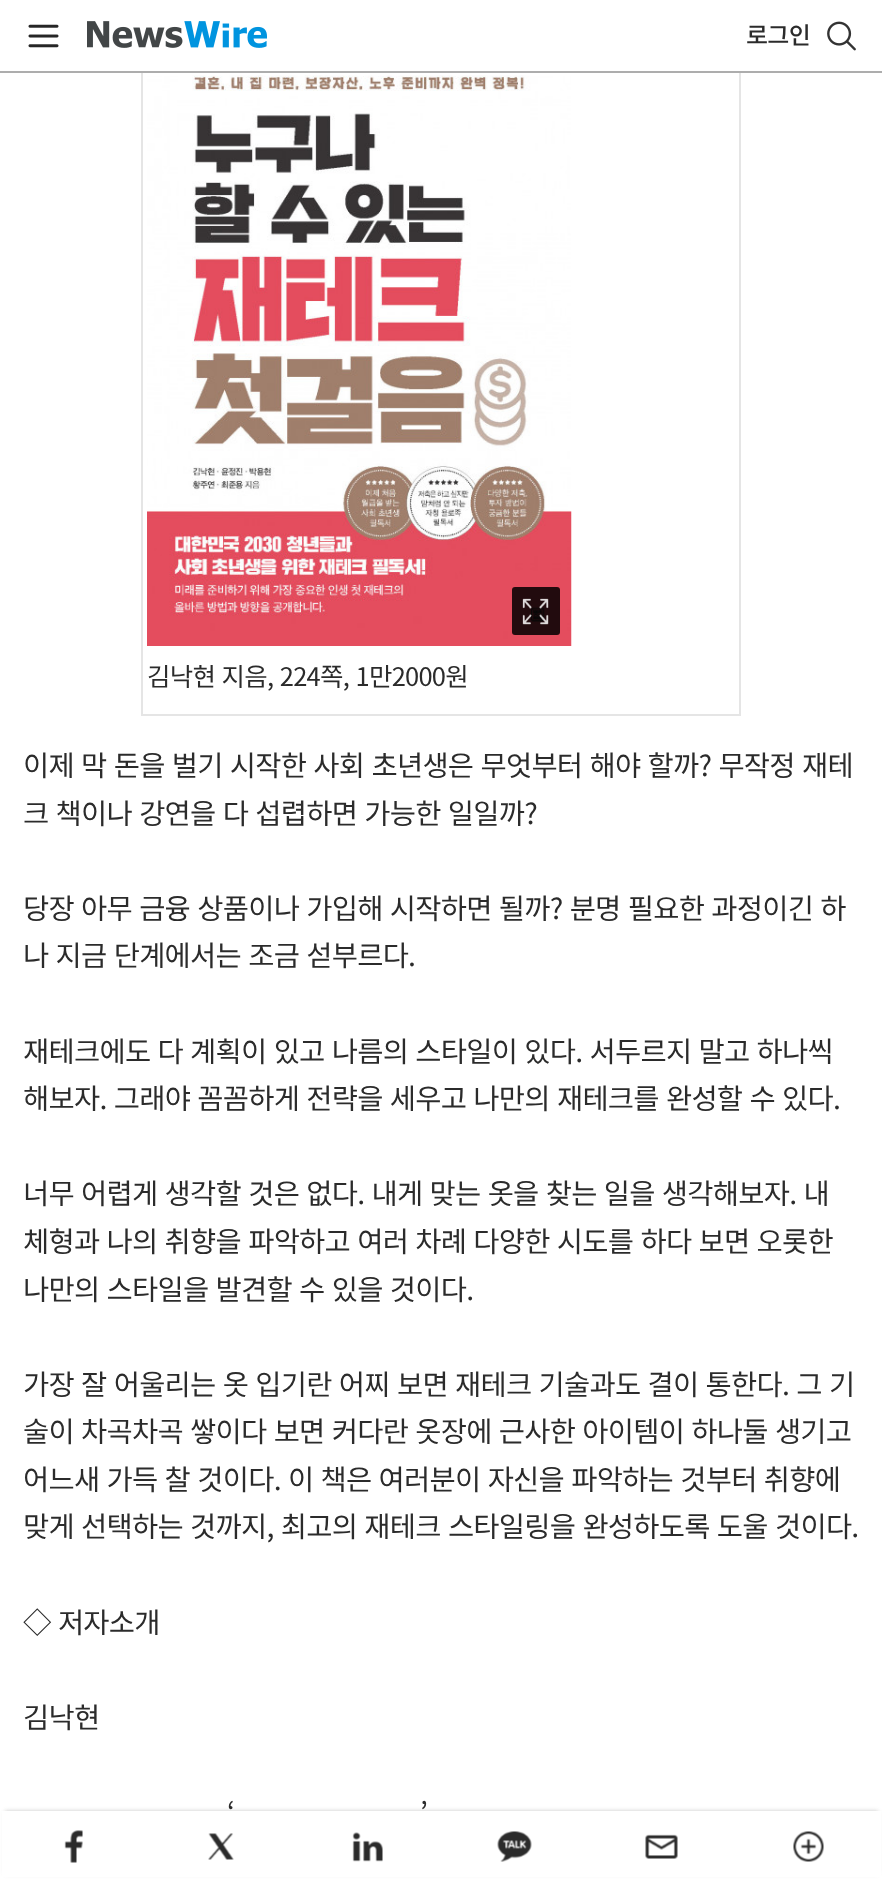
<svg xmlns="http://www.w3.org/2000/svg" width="882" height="1882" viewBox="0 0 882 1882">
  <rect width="100%" height="100%" fill="#fff"/>
  <path d="M142 42h598v673H142z" fill="none" stroke="#e5e5e5" stroke-width="2"/>
  <path d="M141 41h600v30H141z" fill="#fff"/>
  <path d="M0 71h882v2H0z" fill="#adadad"/>
  <image x="28" y="24" width="31" height="24" href="img/1.png"/>
  <image x="87" y="21" width="180" height="27" href="img/2.png"/>
  <image x="827" y="21" width="29" height="30" href="img/3.png"/>
  <image x="147" y="75" width="425" height="571" href="img/4.png"/>
  <rect x="512" y="587" width="48" height="48" rx="3" fill="#000000d9"/>
  <image x="522" y="598" width="27" height="27" href="img/5.png"/>
  <path d="M5 1811h873v63H5z" fill="#4444444d" filter="blur(2px)"/>
  <path d="M2 1811h879v66H2z" fill="#fff"/>
  <image x="64" y="1830" width="19" height="33" href="img/6.png"/>
  <image x="208" y="1833" width="26" height="27" href="img/7.png"/>
  <image x="352" y="1832" width="31" height="30" href="img/8.png"/>
  <image x="497" y="1831" width="35" height="31" href="img/9.png"/>
  <image x="645" y="1834" width="33" height="25" href="img/10.png"/>
  <image x="793" y="1831" width="31" height="31" href="img/11.png"/>
  <text x="746" y="44" font-family="Noto Sans KR" font-size="24" font-weight="500" letter-spacing="-0.75" fill="#2b2b2b">로그인</text>
  <text x="147" y="686" word-spacing="1.5" font-family="Noto Sans KR" font-size="25.5" letter-spacing="-0.75" fill="#2b2b2b">김낙현 지음, 224쪽, 1만2000원</text>
  <g font-family="Noto Sans KR" font-size="28.5" letter-spacing="-0.75" fill="#2b2b2b">
    <text x="23" y="776" word-spacing="1.5">이제 막 돈을 벌기 시작한 사회 초년생은 무엇부터 해야 할까? 무작정 재테</text>
    <text x="23" y="824" word-spacing="1.5">크 책이나 강연을 다 섭렵하면 가능한 일일까?</text>
    <text x="23" y="919" word-spacing="1.5">당장 아무 금융 상품이나 가입해 시작하면 될까? 분명 필요한 과정이긴 하</text>
    <text x="23" y="966" word-spacing="1.5">나 지금 단계에서는 조금 섣부르다.</text>
    <text x="23" y="1062" word-spacing="1.5">재테크에도 다 계획이 있고 나름의 스타일이 있다. 서두르지 말고 하나씩</text>
    <text x="23" y="1109" word-spacing="1.5">해보자. 그래야 꼼꼼하게 전략을 세우고 나만의 재테크를 완성할 수 있다.</text>
    <text x="23" y="1204" word-spacing="1.5">너무 어렵게 생각할 것은 없다. 내게 맞는 옷을 찾는 일을 생각해보자. 내</text>
    <text x="23" y="1252" word-spacing="1.5">체형과 나의 취향을 파악하고 여러 차례 다양한 시도를 하다 보면 오롯한</text>
    <text x="23" y="1300" word-spacing="1.5">나만의 스타일을 발견할 수 있을 것이다.</text>
    <text x="23" y="1395" word-spacing="1.5">가장 잘 어울리는 옷 입기란 어찌 보면 재테크 기술과도 결이 통한다. 그 기</text>
    <text x="23" y="1442" word-spacing="1.5">술이 차곡차곡 쌓이다 보면 커다란 옷장에 근사한 아이템이 하나둘 생기고</text>
    <text x="23" y="1490" word-spacing="1.5">어느새 가득 찰 것이다. 이 책은 여러분이 자신을 파악하는 것부터 취향에</text>
    <text x="23" y="1537" word-spacing="1.5">맞게 선택하는 것까지, 최고의 재테크 스타일링을 완성하도록 도울 것이다.</text>
    <text x="23" y="1633" word-spacing="1.5">◇ 저자소개</text>
    <text x="23" y="1728">김낙현</text>
    <text x="227" y="1823" word-spacing="1.5">‘</text>
    <text x="420" y="1823" word-spacing="1.5">’</text>
  </g>
</svg>
